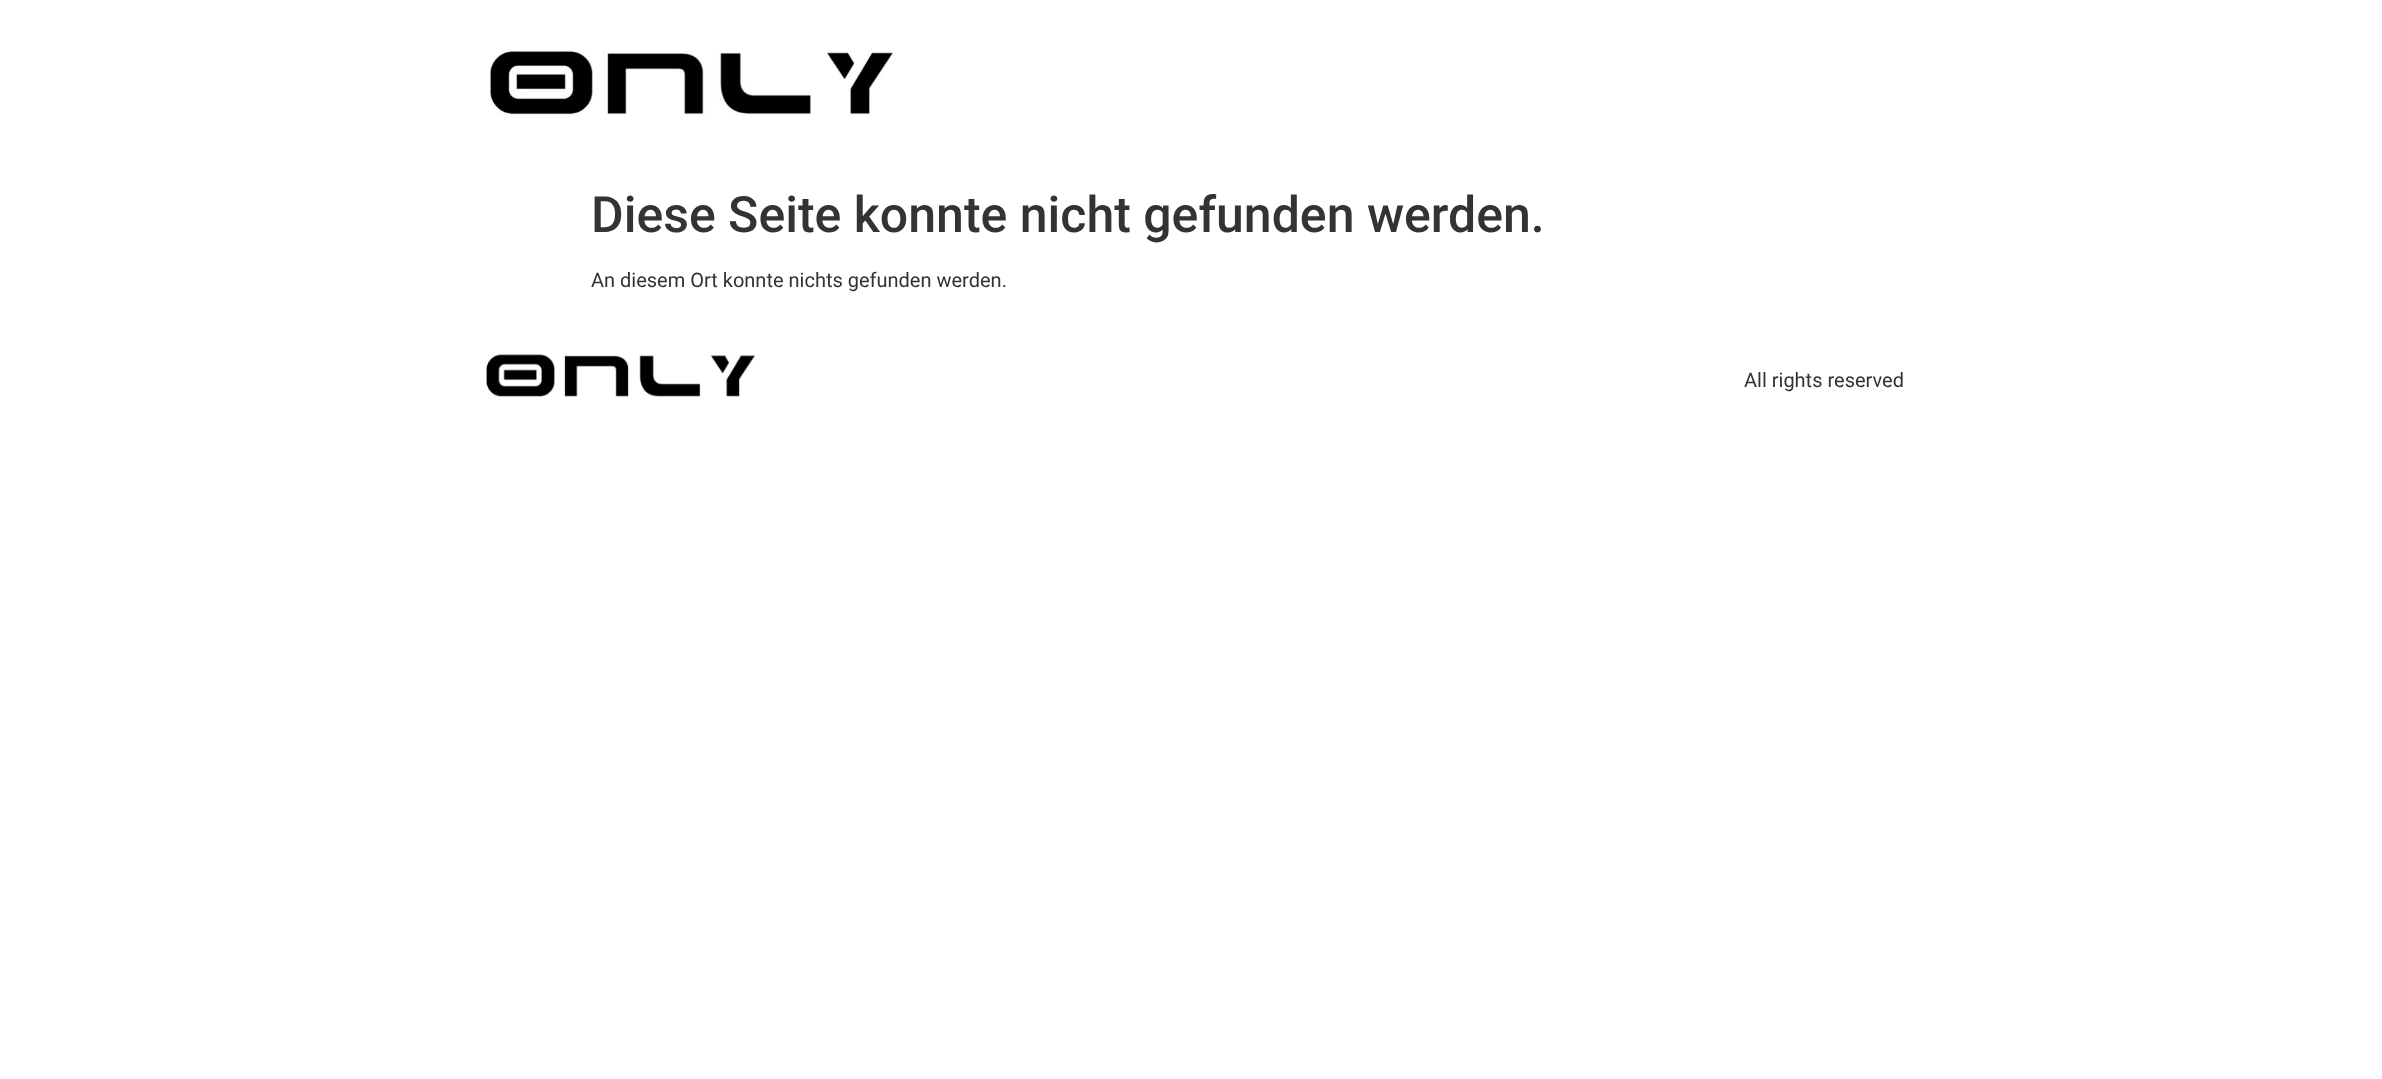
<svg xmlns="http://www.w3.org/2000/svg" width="2382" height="1079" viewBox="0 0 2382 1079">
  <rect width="100%" height="100%" fill="#fff"/>
  <image x="489" y="50" width="405" height="65" href="img/1.png"/>
  <image x="486" y="354" width="270" height="43" href="img/2.png"/>
  <text x="591" y="232" font-family="Roboto" font-size="50" font-weight="500" fill="#333">Diese Seite konnte nicht gefunden werden.</text>
  <g font-family="Roboto" font-size="20" fill="#333">
    <text x="591" y="287">An diesem Ort konnte nichts gefunden werden.</text>
    <text x="1744" y="387">All rights reserved</text>
  </g>
</svg>
